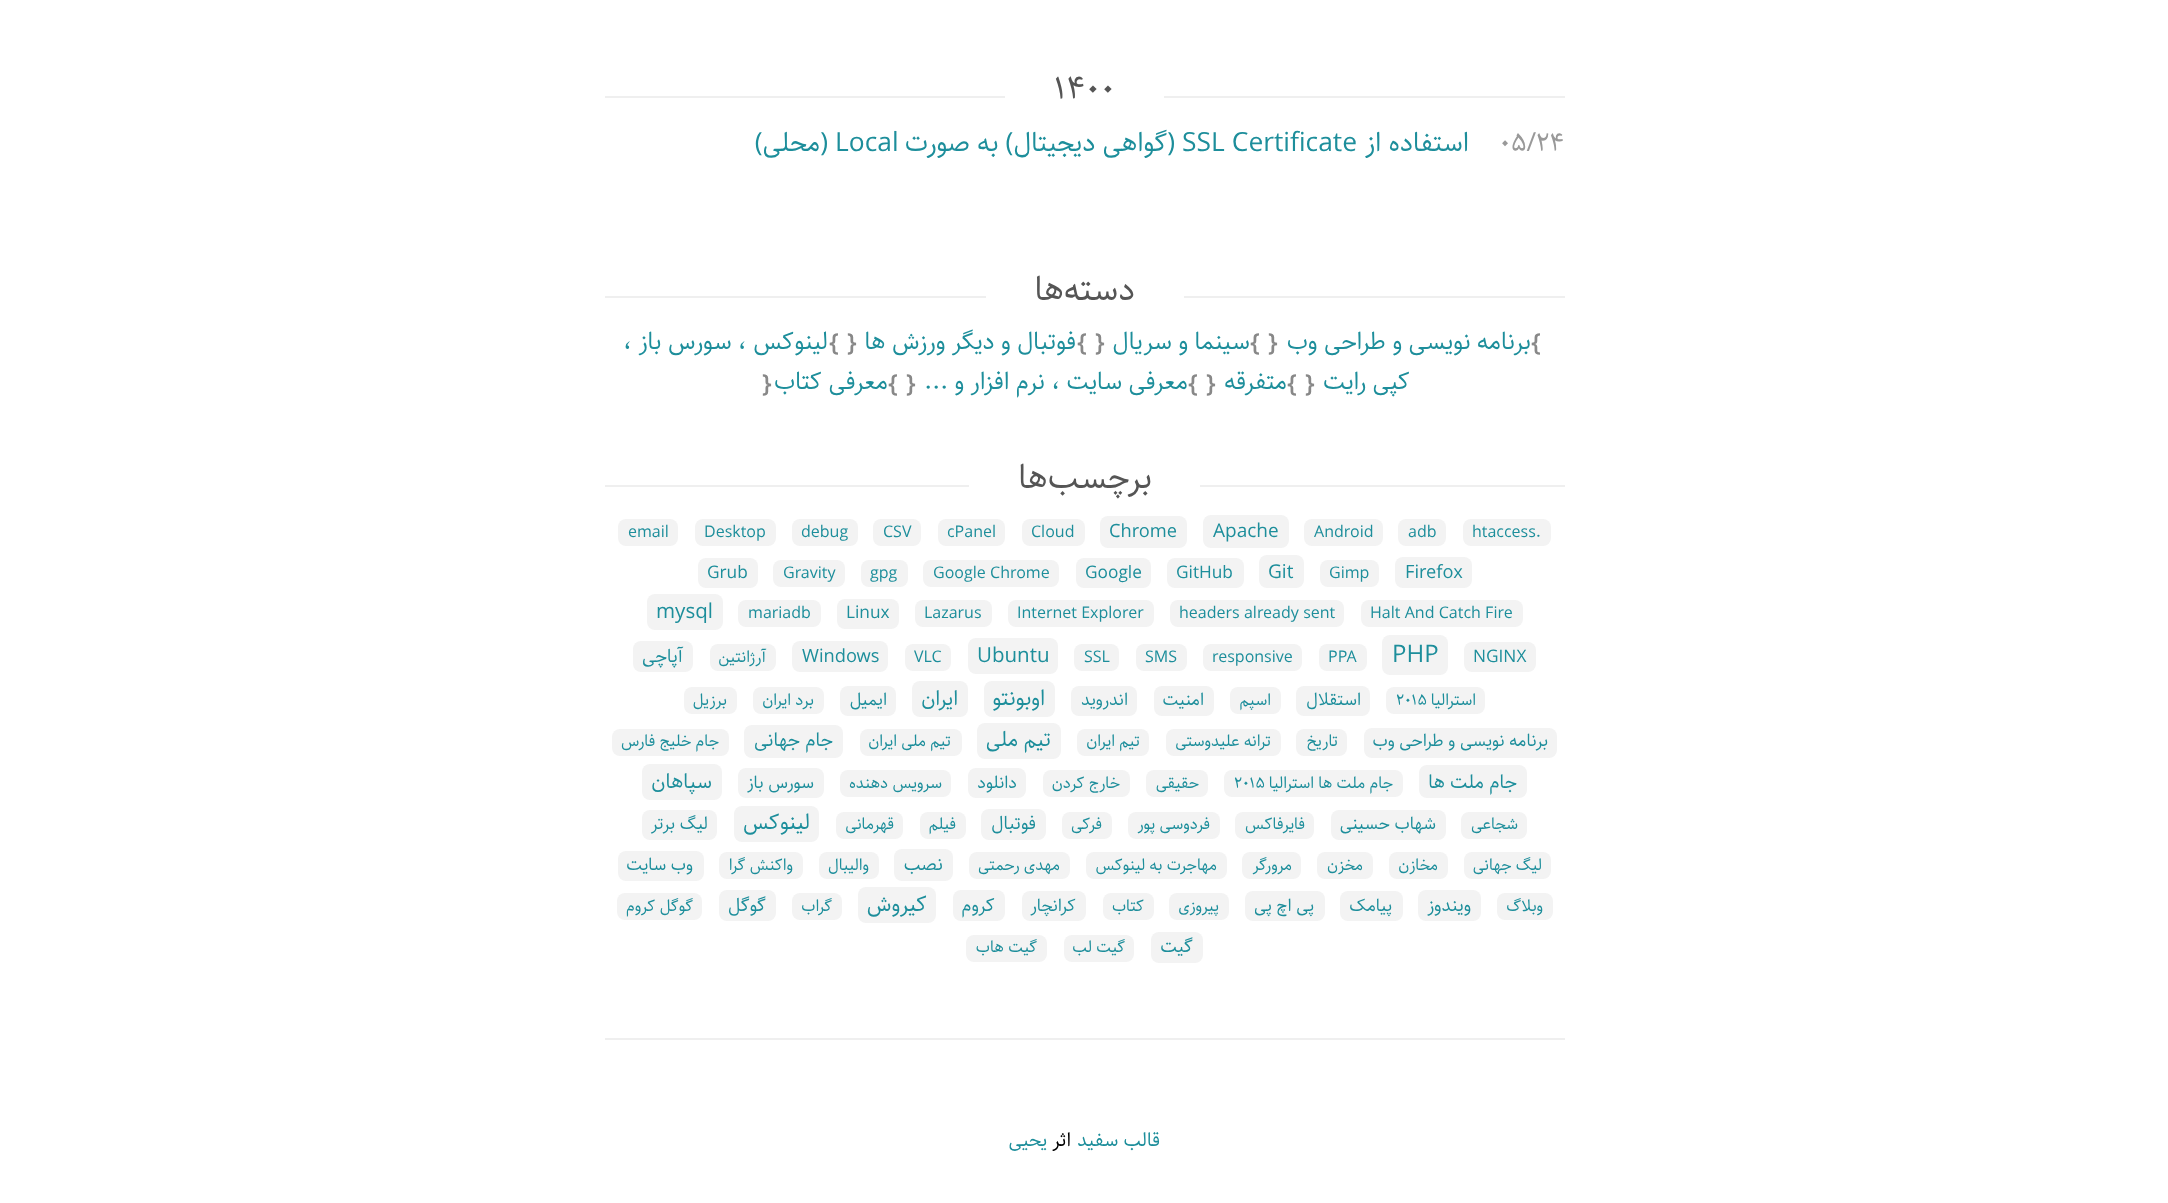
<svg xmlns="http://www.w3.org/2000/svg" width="2168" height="1203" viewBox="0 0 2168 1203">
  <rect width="100%" height="100%" fill="#fff"/>
  <path d="M605 96h960v2H605z" fill="#efefef"/>
  <path d="M1005 96h159v2H1005z" fill="#fff"/>
  <path d="M605 296h960v2H605z" fill="#efefef"/>
  <path d="M986 296h198v2H986z" fill="#fff"/>
  <path d="M605 485h960v2H605z" fill="#efefef"/>
  <path d="M969 485h231v2H969z" fill="#fff"/>
  <rect x="1463" y="519" width="88" height="27" rx="8" fill="#f3f3f3"/>
  <rect x="1398" y="519" width="48" height="27" rx="8" fill="#f3f3f3"/>
  <rect x="1304" y="519" width="79" height="27" rx="8" fill="#f3f3f3"/>
  <rect x="1203" y="515" width="86" height="33" rx="8" fill="#f3f3f3"/>
  <rect x="1100" y="516" width="87" height="32" rx="8" fill="#f3f3f3"/>
  <rect x="1022" y="519" width="63" height="27" rx="8" fill="#f3f3f3"/>
  <rect x="938" y="519" width="67" height="27" rx="8" fill="#f3f3f3"/>
  <rect x="873" y="519" width="48" height="27" rx="8" fill="#f3f3f3"/>
  <rect x="792" y="519" width="66" height="27" rx="8" fill="#f3f3f3"/>
  <rect x="695" y="519" width="81" height="27" rx="8" fill="#f3f3f3"/>
  <rect x="618" y="519" width="60" height="27" rx="8" fill="#f3f3f3"/>
  <rect x="1395" y="557" width="77" height="31" rx="8" fill="#f3f3f3"/>
  <rect x="1320" y="560" width="59" height="27" rx="8" fill="#f3f3f3"/>
  <rect x="1259" y="555" width="45" height="33" rx="8" fill="#f3f3f3"/>
  <rect x="1167" y="558" width="77" height="30" rx="8" fill="#f3f3f3"/>
  <rect x="1076" y="558" width="75" height="30" rx="8" fill="#f3f3f3"/>
  <rect x="923" y="560" width="136" height="27" rx="8" fill="#f3f3f3"/>
  <rect x="861" y="560" width="47" height="27" rx="8" fill="#f3f3f3"/>
  <rect x="773" y="560" width="72" height="27" rx="8" fill="#f3f3f3"/>
  <rect x="698" y="558" width="60" height="30" rx="8" fill="#f3f3f3"/>
  <rect x="1361" y="600" width="162" height="27" rx="8" fill="#f3f3f3"/>
  <rect x="1170" y="600" width="174" height="27" rx="8" fill="#f3f3f3"/>
  <rect x="1008" y="600" width="146" height="27" rx="8" fill="#f3f3f3"/>
  <rect x="915" y="600" width="77" height="27" rx="8" fill="#f3f3f3"/>
  <rect x="837" y="599" width="62" height="30" rx="8" fill="#f3f3f3"/>
  <rect x="738" y="600" width="83" height="27" rx="8" fill="#f3f3f3"/>
  <rect x="647" y="594" width="76" height="36" rx="8" fill="#f3f3f3"/>
  <rect x="1464" y="642" width="72" height="30" rx="8" fill="#f3f3f3"/>
  <rect x="1382" y="635" width="66" height="40" rx="8" fill="#f3f3f3"/>
  <rect x="1319" y="644" width="48" height="27" rx="8" fill="#f3f3f3"/>
  <rect x="1203" y="644" width="99" height="27" rx="8" fill="#f3f3f3"/>
  <rect x="1136" y="644" width="51" height="27" rx="8" fill="#f3f3f3"/>
  <rect x="1074" y="644" width="45" height="27" rx="8" fill="#f3f3f3"/>
  <rect x="968" y="638" width="90" height="36" rx="8" fill="#f3f3f3"/>
  <rect x="905" y="644" width="46" height="27" rx="8" fill="#f3f3f3"/>
  <rect x="792" y="641" width="96" height="31" rx="8" fill="#f3f3f3"/>
  <rect x="710" y="644" width="66" height="27" rx="8" fill="#f3f3f3"/>
  <rect x="633" y="641" width="60" height="31" rx="8" fill="#f3f3f3"/>
  <rect x="1386" y="687" width="99" height="27" rx="8" fill="#f3f3f3"/>
  <rect x="1296" y="686" width="74" height="30" rx="8" fill="#f3f3f3"/>
  <rect x="1230" y="687" width="51" height="27" rx="8" fill="#f3f3f3"/>
  <rect x="1154" y="686" width="60" height="30" rx="8" fill="#f3f3f3"/>
  <rect x="1071" y="686" width="66" height="30" rx="8" fill="#f3f3f3"/>
  <rect x="984" y="681" width="71" height="36" rx="8" fill="#f3f3f3"/>
  <rect x="912" y="681" width="56" height="36" rx="8" fill="#f3f3f3"/>
  <rect x="840" y="686" width="56" height="30" rx="8" fill="#f3f3f3"/>
  <rect x="753" y="687" width="71" height="27" rx="8" fill="#f3f3f3"/>
  <rect x="684" y="687" width="53" height="27" rx="8" fill="#f3f3f3"/>
  <rect x="1364" y="728" width="193" height="30" rx="8" fill="#f3f3f3"/>
  <rect x="1296" y="729" width="51" height="27" rx="8" fill="#f3f3f3"/>
  <rect x="1166" y="729" width="115" height="27" rx="8" fill="#f3f3f3"/>
  <rect x="1077" y="729" width="72" height="27" rx="8" fill="#f3f3f3"/>
  <rect x="977" y="723" width="84" height="36" rx="8" fill="#f3f3f3"/>
  <rect x="860" y="729" width="102" height="27" rx="8" fill="#f3f3f3"/>
  <rect x="744" y="725" width="99" height="33" rx="8" fill="#f3f3f3"/>
  <rect x="612" y="729" width="117" height="27" rx="8" fill="#f3f3f3"/>
  <rect x="1419" y="765" width="108" height="33" rx="8" fill="#f3f3f3"/>
  <rect x="1224" y="770" width="179" height="27" rx="8" fill="#f3f3f3"/>
  <rect x="1146" y="770" width="62" height="27" rx="8" fill="#f3f3f3"/>
  <rect x="1043" y="770" width="87" height="27" rx="8" fill="#f3f3f3"/>
  <rect x="968" y="768" width="58" height="30" rx="8" fill="#f3f3f3"/>
  <rect x="840" y="770" width="111" height="27" rx="8" fill="#f3f3f3"/>
  <rect x="738" y="768" width="86" height="30" rx="8" fill="#f3f3f3"/>
  <rect x="642" y="764" width="80" height="36" rx="8" fill="#f3f3f3"/>
  <rect x="1461" y="812" width="66" height="27" rx="8" fill="#f3f3f3"/>
  <rect x="1331" y="810" width="115" height="30" rx="8" fill="#f3f3f3"/>
  <rect x="1235" y="812" width="79" height="27" rx="8" fill="#f3f3f3"/>
  <rect x="1128" y="812" width="92" height="27" rx="8" fill="#f3f3f3"/>
  <rect x="1062" y="812" width="50" height="27" rx="8" fill="#f3f3f3"/>
  <rect x="981" y="809" width="65" height="31" rx="8" fill="#f3f3f3"/>
  <rect x="920" y="812" width="46" height="27" rx="8" fill="#f3f3f3"/>
  <rect x="836" y="812" width="67" height="27" rx="8" fill="#f3f3f3"/>
  <rect x="734" y="806" width="85" height="36" rx="8" fill="#f3f3f3"/>
  <rect x="642" y="810" width="75" height="30" rx="8" fill="#f3f3f3"/>
  <rect x="1464" y="852" width="87" height="27" rx="8" fill="#f3f3f3"/>
  <rect x="1389" y="852" width="59" height="27" rx="8" fill="#f3f3f3"/>
  <rect x="1317" y="852" width="56" height="27" rx="8" fill="#f3f3f3"/>
  <rect x="1242" y="852" width="59" height="27" rx="8" fill="#f3f3f3"/>
  <rect x="1086" y="852" width="141" height="27" rx="8" fill="#f3f3f3"/>
  <rect x="969" y="852" width="101" height="27" rx="8" fill="#f3f3f3"/>
  <rect x="894" y="849" width="59" height="32" rx="8" fill="#f3f3f3"/>
  <rect x="819" y="852" width="60" height="27" rx="8" fill="#f3f3f3"/>
  <rect x="719" y="852" width="84" height="27" rx="8" fill="#f3f3f3"/>
  <rect x="618" y="851" width="86" height="30" rx="8" fill="#f3f3f3"/>
  <rect x="1497" y="893" width="56" height="27" rx="8" fill="#f3f3f3"/>
  <rect x="1418" y="890" width="63" height="31" rx="8" fill="#f3f3f3"/>
  <rect x="1340" y="891" width="63" height="30" rx="8" fill="#f3f3f3"/>
  <rect x="1245" y="891" width="80" height="30" rx="8" fill="#f3f3f3"/>
  <rect x="1169" y="893" width="60" height="27" rx="8" fill="#f3f3f3"/>
  <rect x="1103" y="893" width="51" height="27" rx="8" fill="#f3f3f3"/>
  <rect x="1022" y="891" width="64" height="30" rx="8" fill="#f3f3f3"/>
  <rect x="953" y="890" width="52" height="31" rx="8" fill="#f3f3f3"/>
  <rect x="858" y="887" width="78" height="36" rx="8" fill="#f3f3f3"/>
  <rect x="792" y="893" width="50" height="27" rx="8" fill="#f3f3f3"/>
  <rect x="719" y="890" width="57" height="31" rx="8" fill="#f3f3f3"/>
  <rect x="617" y="893" width="85" height="27" rx="8" fill="#f3f3f3"/>
  <rect x="1151" y="932" width="52" height="31" rx="8" fill="#f3f3f3"/>
  <rect x="1064" y="935" width="70" height="27" rx="8" fill="#f3f3f3"/>
  <rect x="966" y="935" width="81" height="27" rx="8" fill="#f3f3f3"/>
  <path d="M605 1038h960v2H605z" fill="#efefef"/>
  <text x="1054" y="99" font-family="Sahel" font-size="33.5" fill="#555">۱۴۰۰</text>
  <text x="1499" y="151" font-family="Sahel" font-size="26.4" fill="#999">۰۵/۲۴</text>
  <text x="1469" y="151" font-family="Sahel" font-size="26.4" direction="rtl" fill="#1d8e9b">استفاده از</text>
  <text x="1182" y="151" font-family="Sahel" font-size="26.4" fill="#1d8e9b">SSL Certificate</text>
  <text x="1175" y="151" font-family="Sahel" font-size="26.4" direction="rtl" fill="#1d8e9b">(گواهی دیجیتال) به صورت</text>
  <text x="835" y="151" font-family="Sahel" font-size="26.4" fill="#1d8e9b">Local</text>
  <text x="828" y="151" font-family="Sahel" font-size="26.4" direction="rtl" fill="#1d8e9b">(محلی)</text>
  <text x="1135" y="300" font-family="Sahel" font-size="33.5" direction="rtl" fill="#555">دسته‌ها</text>
  <text x="1077" y="351" font-family="Sahel" font-size="24" font-weight="bold" fill="#888">{</text>
  <text x="1076" y="349" font-family="Sahel" font-size="24" direction="rtl" fill="#1d8e9b">فوتبال و دیگر ورزش ها</text>
  <g font-family="Sahel" font-size="24" font-weight="bold" fill="#888">
    <text x="847" y="351">}</text>
    <text x="829" y="351">{</text>
  </g>
  <g font-family="Sahel" font-size="24" direction="rtl" fill="#1d8e9b">
    <text x="828" y="349">لینوکس ،‌ سورس باز ،‌</text>
    <text x="1410" y="389">کپی رایت</text>
  </g>
  <g font-family="Sahel" font-size="24" font-weight="bold" fill="#888">
    <text x="1305" y="392">}</text>
    <text x="1531" y="351">{</text>
  </g>
  <text x="1531" y="349" font-family="Sahel" font-size="24" direction="rtl" fill="#1d8e9b">برنامه نویسی و طراحی وب</text>
  <g font-family="Sahel" font-size="24" font-weight="bold" fill="#888">
    <text x="1268" y="351">}</text>
    <text x="1250" y="351">{</text>
  </g>
  <text x="1250" y="349" font-family="Sahel" font-size="24" direction="rtl" fill="#1d8e9b">سینما و سریال</text>
  <g font-family="Sahel" font-size="24" font-weight="bold" fill="#888">
    <text x="1095" y="351">}</text>
    <text x="1287" y="392">{</text>
  </g>
  <text x="1287" y="389" font-family="Sahel" font-size="24" direction="rtl" fill="#1d8e9b">متفرقه</text>
  <g font-family="Sahel" font-size="24" font-weight="bold" fill="#888">
    <text x="1206" y="392">}</text>
    <text x="1188" y="392">{</text>
  </g>
  <text x="1188" y="389" font-family="Sahel" font-size="24" direction="rtl" fill="#1d8e9b">معرفی سایت ،‌ نرم افزار و ...</text>
  <g font-family="Sahel" font-size="24" font-weight="bold" fill="#888">
    <text x="906" y="392">}</text>
    <text x="888" y="392">{</text>
  </g>
  <text x="888" y="389" font-family="Sahel" font-size="24" direction="rtl" fill="#1d8e9b">معرفی کتاب</text>
  <text x="762" y="392" font-family="Sahel" font-size="24" font-weight="bold" fill="#888">}</text>
  <text x="1152" y="488" font-family="Sahel" font-size="33.5" direction="rtl" fill="#555">برچسب‌ها</text>
  <g font-family="Sahel" font-size="16" fill="#1d8e9b">
    <text x="1472" y="537">htaccess.</text>
    <text x="1408" y="537">adb</text>
    <text x="1314" y="537">Android</text>
  </g>
  <text x="1213" y="537" font-family="Sahel" font-size="19" fill="#1d8e9b">Apache</text>
  <text x="1109" y="537" font-family="Sahel" font-size="18.25" fill="#1d8e9b">Chrome</text>
  <g font-family="Sahel" font-size="16" fill="#1d8e9b">
    <text x="1031" y="537">Cloud</text>
    <text x="947" y="537">cPanel</text>
    <text x="883" y="537">CSV</text>
    <text x="801" y="537">debug</text>
    <text x="704" y="537">Desktop</text>
    <text x="628" y="537">email</text>
  </g>
  <text x="1405" y="578" font-family="Sahel" font-size="18.25" fill="#1d8e9b">Firefox</text>
  <text x="1329" y="578" font-family="Sahel" font-size="16" fill="#1d8e9b">Gimp</text>
  <text x="1268" y="578" font-family="Sahel" font-size="19" fill="#1d8e9b">Git</text>
  <g font-family="Sahel" font-size="17.25" fill="#1d8e9b">
    <text x="1176" y="578">GitHub</text>
    <text x="1085" y="578">Google</text>
  </g>
  <g font-family="Sahel" font-size="16" fill="#1d8e9b">
    <text x="933" y="578">Google Chrome</text>
    <text x="870" y="578">gpg</text>
    <text x="783" y="578">Gravity</text>
  </g>
  <text x="707" y="578" font-family="Sahel" font-size="17.25" fill="#1d8e9b">Grub</text>
  <g font-family="Sahel" font-size="16" fill="#1d8e9b">
    <text x="1370" y="618">Halt And Catch Fire</text>
    <text x="1179" y="618">headers already sent</text>
    <text x="1017" y="618">Internet Explorer</text>
    <text x="924" y="618">Lazarus</text>
  </g>
  <text x="846" y="618" font-family="Sahel" font-size="17.25" fill="#1d8e9b">Linux</text>
  <text x="748" y="618" font-family="Sahel" font-size="16" fill="#1d8e9b">mariadb</text>
  <text x="656" y="618" font-family="Sahel" font-size="20.5" fill="#1d8e9b">mysql</text>
  <text x="1473" y="662" font-family="Sahel" font-size="17.25" fill="#1d8e9b">NGINX</text>
  <text x="1392" y="662" font-family="Sahel" font-size="24" fill="#1d8e9b">PHP</text>
  <g font-family="Sahel" font-size="16" fill="#1d8e9b">
    <text x="1328" y="662">PPA</text>
    <text x="1212" y="662">responsive</text>
    <text x="1145" y="662">SMS</text>
    <text x="1084" y="662">SSL</text>
  </g>
  <text x="977" y="662" font-family="Sahel" font-size="20.5" fill="#1d8e9b">Ubuntu</text>
  <text x="914" y="662" font-family="Sahel" font-size="16" fill="#1d8e9b">VLC</text>
  <text x="802" y="662" font-family="Sahel" font-size="18.25" fill="#1d8e9b">Windows</text>
  <text x="766" y="662" font-family="Sahel" font-size="16" direction="rtl" fill="#1d8e9b">آرژانتین</text>
  <text x="683" y="662" font-family="Sahel" font-size="18.25" direction="rtl" fill="#1d8e9b">آپاچی</text>
  <text x="1476" y="705" font-family="Sahel" font-size="16" direction="rtl" fill="#1d8e9b">استرالیا</text>
  <text x="1396" y="705" font-family="Sahel" font-size="16" fill="#1d8e9b">۲۰۱۵</text>
  <text x="1361" y="705" font-family="Sahel" font-size="17.25" direction="rtl" fill="#1d8e9b">استقلال</text>
  <text x="1271" y="705" font-family="Sahel" font-size="16" direction="rtl" fill="#1d8e9b">اسپم</text>
  <g font-family="Sahel" font-size="17.25" direction="rtl" fill="#1d8e9b">
    <text x="1204" y="705">امنیت</text>
    <text x="1128" y="705">اندروید</text>
  </g>
  <text x="1045" y="705" font-family="Sahel" font-size="21.5" direction="rtl" fill="#1d8e9b">اوبونتو</text>
  <text x="958" y="705" font-family="Sahel" font-size="20.5" direction="rtl" fill="#1d8e9b">ایران</text>
  <text x="887" y="705" font-family="Sahel" font-size="17.25" direction="rtl" fill="#1d8e9b">ایمیل</text>
  <g font-family="Sahel" font-size="16" direction="rtl" fill="#1d8e9b">
    <text x="814" y="705">برد ایران</text>
    <text x="727" y="705">برزیل</text>
  </g>
  <text x="1548" y="746" font-family="Sahel" font-size="17.25" direction="rtl" fill="#1d8e9b">برنامه نویسی و طراحی وب</text>
  <g font-family="Sahel" font-size="16" direction="rtl" fill="#1d8e9b">
    <text x="1338" y="746">تاریخ</text>
    <text x="1271" y="746">ترانه علیدوستی</text>
    <text x="1140" y="746">تیم ایران</text>
  </g>
  <text x="1051" y="746" font-family="Sahel" font-size="21" direction="rtl" fill="#1d8e9b">تیم ملی</text>
  <text x="951" y="746" font-family="Sahel" font-size="16" direction="rtl" fill="#1d8e9b">تیم ملی ایران</text>
  <text x="833" y="746" font-family="Sahel" font-size="19" direction="rtl" fill="#1d8e9b">جام جهانی</text>
  <text x="719" y="746" font-family="Sahel" font-size="16" direction="rtl" fill="#1d8e9b">جام خلیج فارس</text>
  <text x="1517" y="788" font-family="Sahel" font-size="19" direction="rtl" fill="#1d8e9b">جام ملت ها</text>
  <text x="1393" y="788" font-family="Sahel" font-size="16" direction="rtl" fill="#1d8e9b">جام ملت ها استرالیا</text>
  <text x="1234" y="788" font-family="Sahel" font-size="16" fill="#1d8e9b">۲۰۱۵</text>
  <g font-family="Sahel" font-size="16" direction="rtl" fill="#1d8e9b">
    <text x="1199" y="788">حقیقی</text>
    <text x="1120" y="788">خارج کردن</text>
  </g>
  <text x="1017" y="788" font-family="Sahel" font-size="17.25" direction="rtl" fill="#1d8e9b">دانلود</text>
  <text x="942" y="788" font-family="Sahel" font-size="16" direction="rtl" fill="#1d8e9b">سرویس دهنده</text>
  <text x="814" y="788" font-family="Sahel" font-size="17.25" direction="rtl" fill="#1d8e9b">سورس باز</text>
  <text x="712" y="788" font-family="Sahel" font-size="20.5" direction="rtl" fill="#1d8e9b">سپاهان</text>
  <text x="1518" y="829" font-family="Sahel" font-size="16" direction="rtl" fill="#1d8e9b">شجاعی</text>
  <text x="1436" y="829" font-family="Sahel" font-size="17.25" direction="rtl" fill="#1d8e9b">شهاب حسینی</text>
  <g font-family="Sahel" font-size="16" direction="rtl" fill="#1d8e9b">
    <text x="1305" y="829">فایرفاکس</text>
    <text x="1210" y="829">فردوسی پور</text>
    <text x="1102" y="829">فرکی</text>
  </g>
  <text x="1036" y="829" font-family="Sahel" font-size="18.25" direction="rtl" fill="#1d8e9b">فوتبال</text>
  <g font-family="Sahel" font-size="16" direction="rtl" fill="#1d8e9b">
    <text x="956" y="829">فیلم</text>
    <text x="894" y="829">قهرمانی</text>
  </g>
  <text x="810" y="829" font-family="Sahel" font-size="21.5" direction="rtl" fill="#1d8e9b">لینوکس</text>
  <text x="708" y="829" font-family="Sahel" font-size="17.25" direction="rtl" fill="#1d8e9b">لیگ برتر</text>
  <g font-family="Sahel" font-size="16" direction="rtl" fill="#1d8e9b">
    <text x="1542" y="870">لیگ جهانی</text>
    <text x="1438" y="870">مخازن</text>
    <text x="1363" y="870">مخزن</text>
    <text x="1292" y="870">مرورگر</text>
    <text x="1217" y="870">مهاجرت به لینوکس</text>
    <text x="1060" y="870">مهدی رحمتی</text>
  </g>
  <text x="943" y="870" font-family="Sahel" font-size="18.25" direction="rtl" fill="#1d8e9b">نصب</text>
  <g font-family="Sahel" font-size="16" direction="rtl" fill="#1d8e9b">
    <text x="869" y="870">والیبال</text>
    <text x="793" y="870">واکنش گرا</text>
  </g>
  <text x="693" y="870" font-family="Sahel" font-size="17.25" direction="rtl" fill="#1d8e9b">وب سایت</text>
  <text x="1543" y="911" font-family="Sahel" font-size="16" direction="rtl" fill="#1d8e9b">وبلاگ</text>
  <text x="1471" y="911" font-family="Sahel" font-size="18.25" direction="rtl" fill="#1d8e9b">ویندوز</text>
  <g font-family="Sahel" font-size="17.25" direction="rtl" fill="#1d8e9b">
    <text x="1392" y="911">پیامک</text>
    <text x="1314" y="911">پی اچ پی</text>
  </g>
  <g font-family="Sahel" font-size="16" direction="rtl" fill="#1d8e9b">
    <text x="1219" y="911">پیروزی</text>
    <text x="1144" y="911">کتاب</text>
  </g>
  <text x="1076" y="911" font-family="Sahel" font-size="17.25" direction="rtl" fill="#1d8e9b">کرانچار</text>
  <text x="995" y="911" font-family="Sahel" font-size="18.25" direction="rtl" fill="#1d8e9b">کروم</text>
  <text x="927" y="911" font-family="Sahel" font-size="21.5" direction="rtl" fill="#1d8e9b">کیروش</text>
  <text x="832" y="911" font-family="Sahel" font-size="16" direction="rtl" fill="#1d8e9b">گراب</text>
  <text x="766" y="911" font-family="Sahel" font-size="18.25" direction="rtl" fill="#1d8e9b">گوگل</text>
  <text x="693" y="911" font-family="Sahel" font-size="16" direction="rtl" fill="#1d8e9b">گوگل کروم</text>
  <text x="1193" y="952" font-family="Sahel" font-size="18.25" direction="rtl" fill="#1d8e9b">گیت</text>
  <g font-family="Sahel" font-size="16" direction="rtl" fill="#1d8e9b">
    <text x="1125" y="952">گیت لب</text>
    <text x="1037" y="952">گیت هاب</text>
  </g>
  <text x="1160" y="1146" font-family="Sahel" font-size="19" direction="rtl" fill="#1d8e9b">قالب سفید</text>
  <text x="1071" y="1146" font-family="Sahel" font-size="19" direction="rtl" fill="#000">اثر</text>
  <text x="1047" y="1146" font-family="Sahel" font-size="19" direction="rtl" fill="#1d8e9b">یحیی</text>
</svg>
